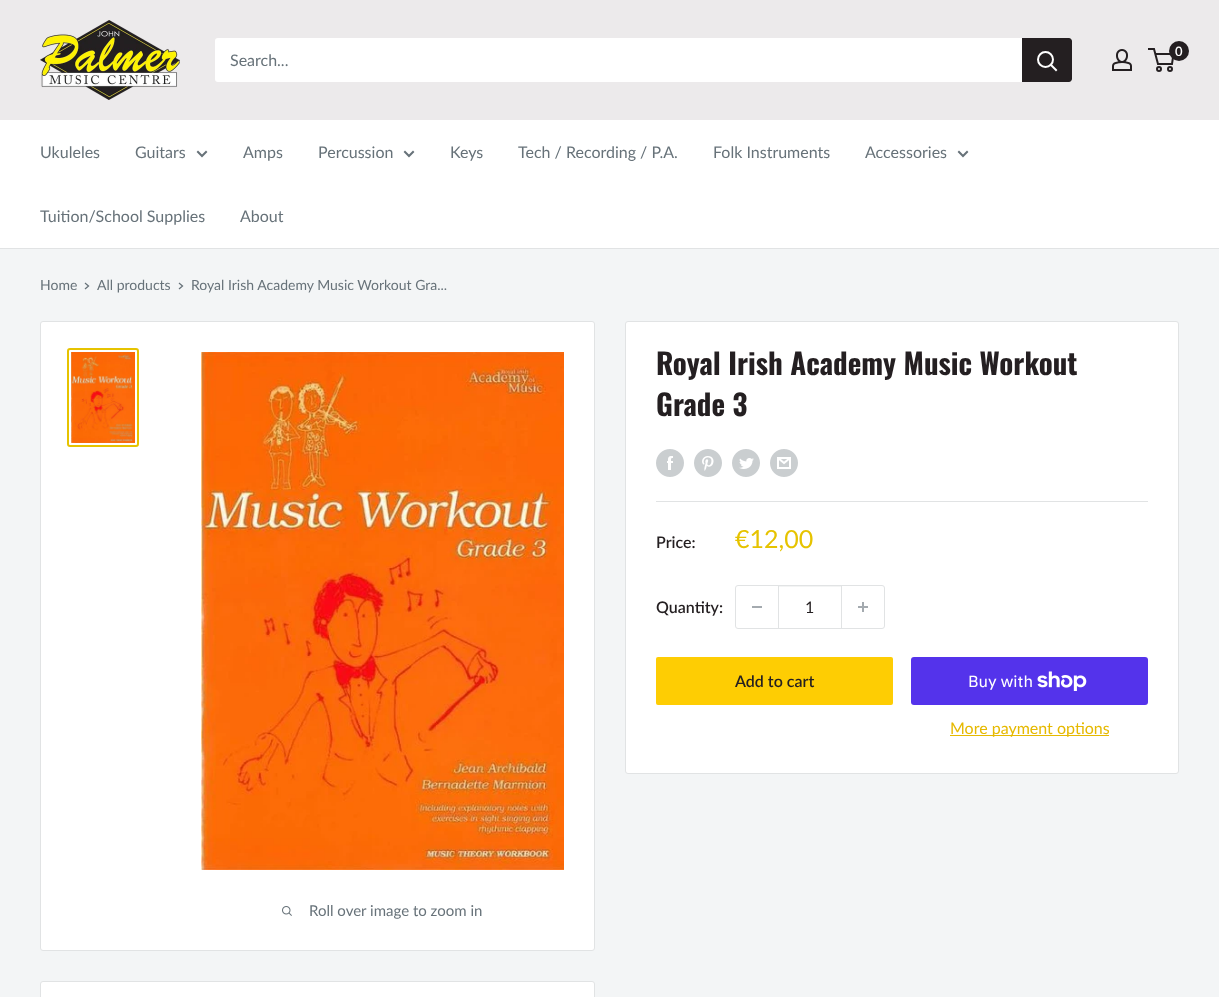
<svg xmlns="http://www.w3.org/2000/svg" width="1219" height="997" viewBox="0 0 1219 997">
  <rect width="100%" height="100%" fill="#f3f5f6"/>
  <path d="M0 0h1219v120H0z" fill="#eceaeb"/>
  <image x="40" y="20" width="140" height="80" href="img/1.png"/>
  <image x="1112" y="49" width="20" height="22" href="img/2.png"/>
  <circle cx="1159" cy="69" r="2" fill="none" stroke="#241f21" stroke-width="2"/>
  <circle cx="1170" cy="69" r="2" fill="none" stroke="#241f21" stroke-width="2"/>
  <path d="M1155.5 54H1173.5L1172 64H1158L1154 49H1148" fill="none" stroke="#241f21" stroke-width="2"/>
  <circle cx="1179" cy="51" r="10" fill="#241f21"/>
  <rect x="215" y="38" width="857" height="44" rx="3" fill="#fff"/>
  <path d="M1022 38H1069C1070.5 38 1072 39.5 1072 41V79C1072 80.5 1070.5 82 1069 82H1022Z" fill="#241f21"/>
  <path d="M1056 70L1051 65" fill="none" stroke="#fff" stroke-width="2" stroke-linecap="square"/>
  <circle cx="1045.5" cy="59.5" r="7.5" fill="none" stroke="#fff" stroke-width="2"/>
  <path d="M0 120h1219v128H0z" fill="#fff"/>
  <path d="M0 248h1219v1H0z" fill="#e1e3e4"/>
  <path d="M206 152L202 156L198 152" fill="none" stroke="#677279" stroke-width="2" stroke-linecap="square"/>
  <path d="M413 152L409 156L405 152" fill="none" stroke="#677279" stroke-width="2" stroke-linecap="square"/>
  <path d="M967 152L963 156L959 152" fill="none" stroke="#677279" stroke-width="2" stroke-linecap="square"/>
  <path d="M85.5 283.5L88.5 286L85.5 288.5" fill="none" stroke="#677279" stroke-width="1.3" stroke-linecap="square"/>
  <path d="M179.5 283.5L182.5 286L179.5 288.5" fill="none" stroke="#677279" stroke-width="1.3" stroke-linecap="square"/>
  <rect x="625.5" y="321.5" width="553" height="452" rx="2.5" fill="#fff" stroke="#e1e3e4"/>
  <image x="656" y="449" width="28" height="28" href="img/3.png"/>
  <image x="694" y="449" width="28" height="28" href="img/4.png"/>
  <image x="732" y="449" width="28" height="28" href="img/5.png"/>
  <image x="770" y="449" width="28" height="28" href="img/6.png"/>
  <path d="M656 501h492v1H656z" fill="#e1e3e4"/>
  <rect x="735.5" y="585.5" width="149" height="43" rx="2.5" fill="none" stroke="#e1e3e4"/>
  <path d="M752 606h10v2H752z" fill="#a4aaaf"/>
  <path d="M779 586h62v1H779z" fill="#f3f4f4"/>
  <path d="M841 586h1v42H841z" fill="#e1e3e4"/>
  <path d="M778 586h1v42H778z" fill="#e1e3e4"/>
  <image x="858" y="602" width="10" height="10" href="img/7.png"/>
  <rect x="656" y="657" width="237" height="48" rx="2" fill="#fecd03"/>
  <rect x="911" y="657" width="237" height="48" rx="3" fill="#5433eb"/>
  <image x="1037" y="671" width="50" height="20" href="img/8.png"/>
  <path d="M950 735h159v1H950z" fill="#e6b900"/>
  <rect x="40.5" y="321.5" width="554" height="629" rx="2.5" fill="#fff" stroke="#e1e3e4"/>
  <rect x="68" y="349" width="70" height="97" rx="2" fill="none" stroke="#e6c300" stroke-width="2"/>
  <image x="71" y="352" width="64" height="91" href="img/9.png"/>
  <image x="201" y="352" width="363" height="518" href="img/10.png"/>
  <image x="282" y="906" width="10" height="10" href="img/11.png"/>
  <rect x="40.5" y="981.5" width="554" height="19" rx="2.5" fill="#fff" stroke="#e1e3e4"/>
  <text x="1175" y="56" font-family="Lato" font-size="13" font-weight="600" fill="#fff">0</text>
  <g font-family="Lato" font-size="16" fill="#677279">
    <text x="230" y="66">Search...</text>
    <text x="40" y="158">Ukuleles</text>
    <text x="135" y="158">Guitars</text>
    <text x="243" y="158">Amps</text>
    <text x="318" y="158">Percussion</text>
    <text x="450" y="158">Keys</text>
    <text x="518" y="158">Tech / Recording / P.A.</text>
    <text x="713" y="158">Folk Instruments</text>
    <text x="865" y="158">Accessories</text>
    <text x="40" y="222">Tuition/School Supplies</text>
    <text x="240" y="222">About</text>
  </g>
  <g font-family="Lato" font-size="14" fill="#677279">
    <text x="40" y="290">Home</text>
    <text x="97" y="290">All products</text>
    <text x="191" y="290">Royal Irish Academy Music Workout Gra...</text>
  </g>
  <g font-family="Oswald" font-size="29" font-weight="bold" fill="#241f21">
    <text x="656" y="375">Royal Irish Academy Music Workout</text>
    <text x="656" y="416">Grade 3</text>
  </g>
  <text x="656" y="548" font-family="Lato" font-size="16" font-weight="600" fill="#241f21">Price:</text>
  <text x="735" y="548" font-family="Lato" font-size="25" fill="#e6c300">€12,00</text>
  <text x="656" y="613" font-family="Lato" font-size="16" font-weight="600" fill="#241f21">Quantity:</text>
  <text x="805" y="613" font-family="Lato" font-size="16" fill="#241f21">1</text>
  <text x="735" y="687" font-family="Lato" font-size="16" font-weight="600" fill="#241f21">Add to cart</text>
  <text x="968" y="687" font-family="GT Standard" font-size="16" fill="#fff">Buy with</text>
  <text x="950" y="734" font-family="Lato" font-size="16" fill="#e6b900">More payment options</text>
  <text x="309" y="916" font-family="Lato" font-size="15" fill="#677279">Roll over image to zoom in</text>
</svg>
